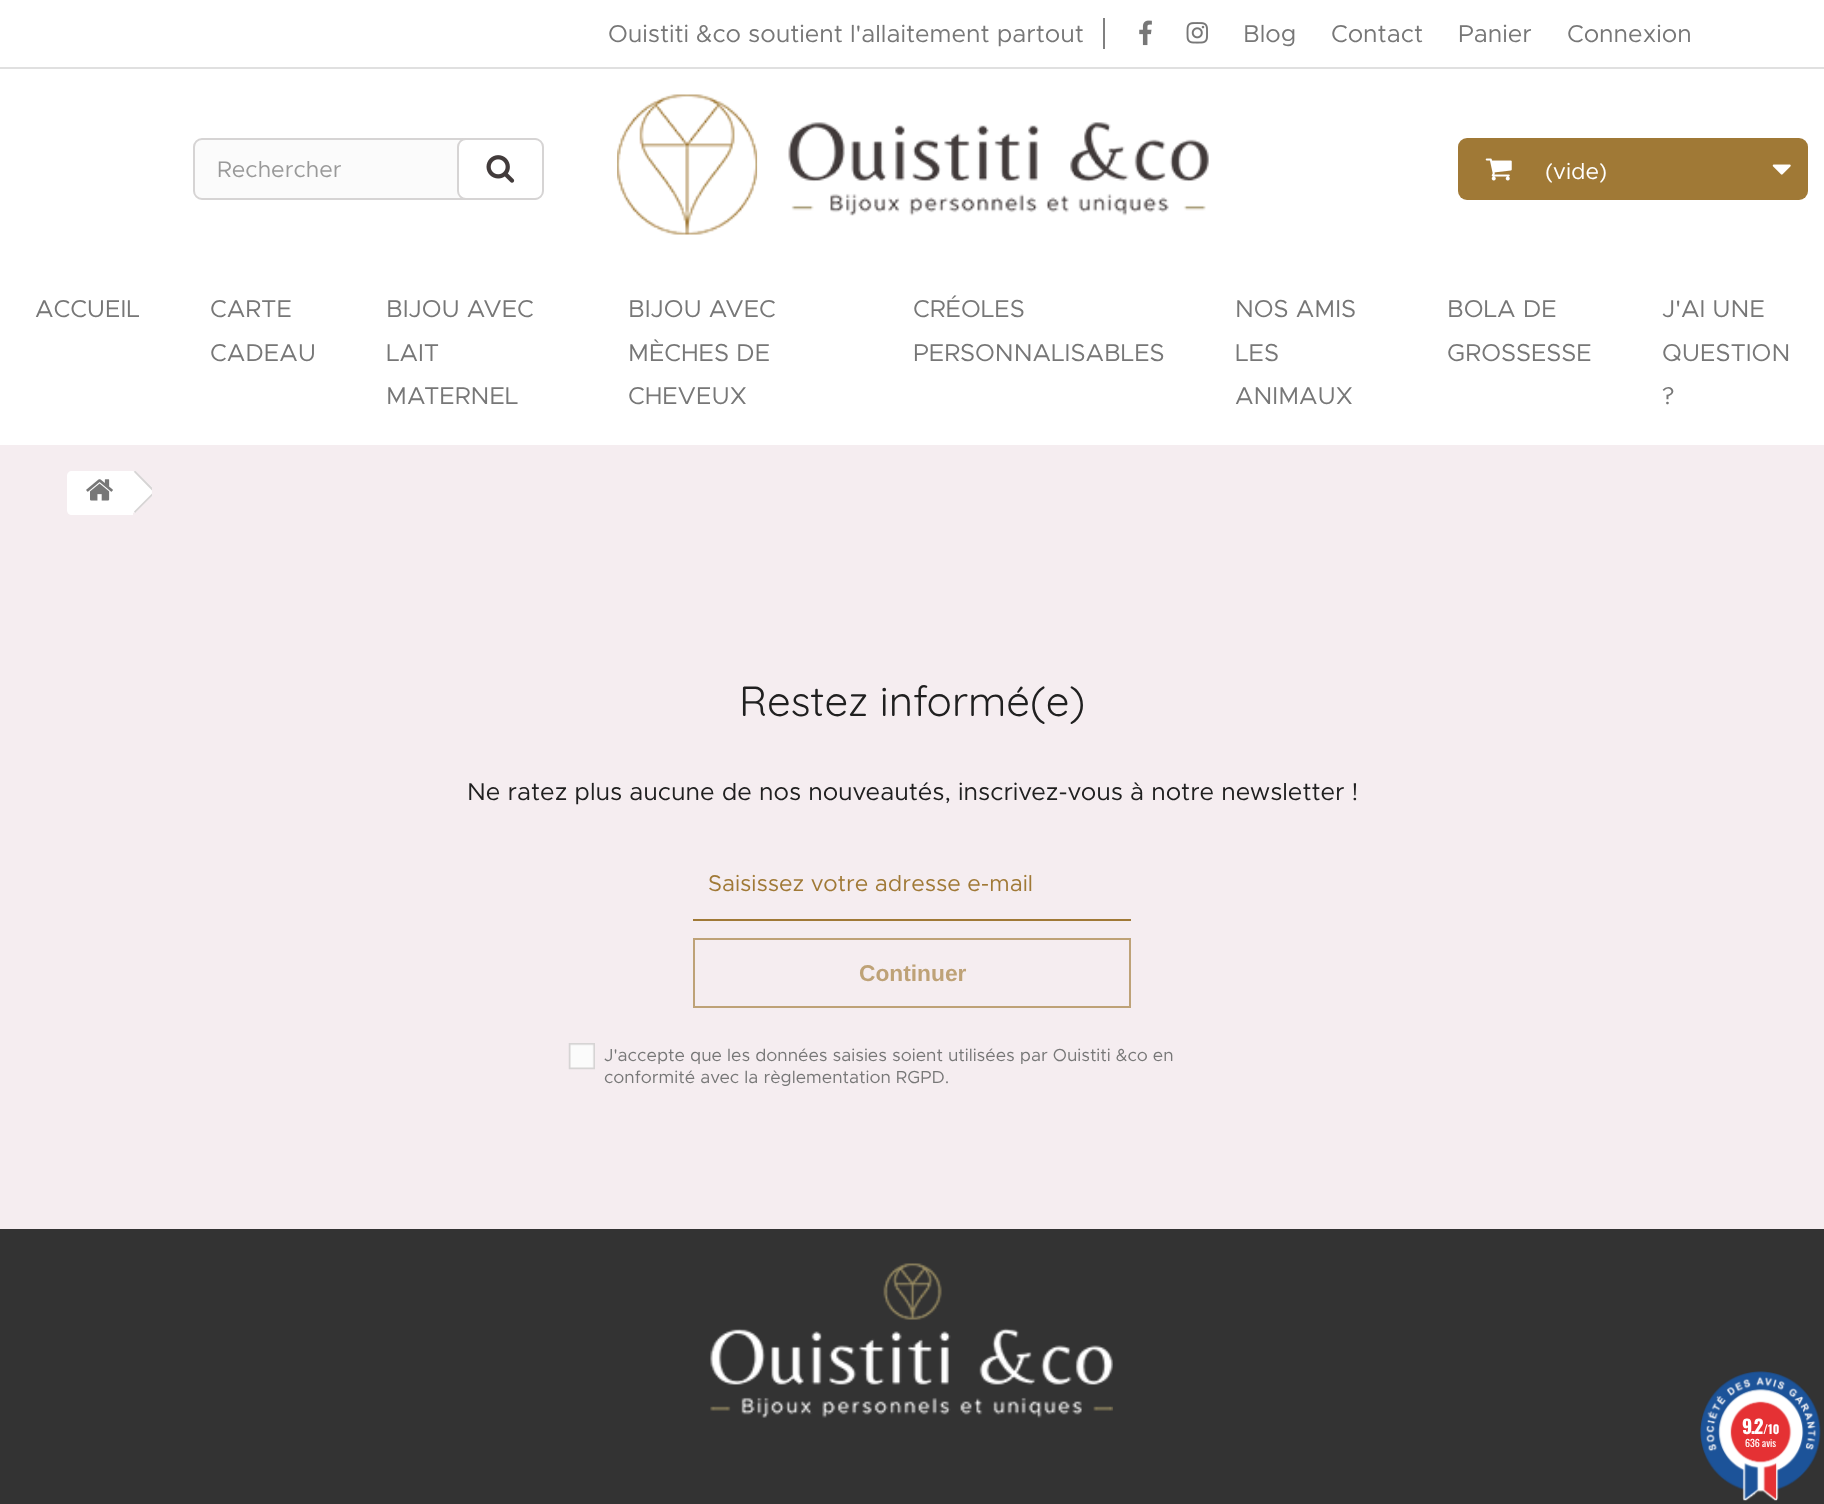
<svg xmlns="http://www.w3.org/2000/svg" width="1824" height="1504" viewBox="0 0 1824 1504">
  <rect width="100%" height="100%" fill="#f5edf0"/>
  <path d="M0 0h1824v445H0z" fill="#fff"/>
  <path d="M0 67h1824v2H0z" fill="#e0e0e0"/>
  <path d="M1103 18h2v31H1103z" fill="#808080"/>
  <image x="1139" y="20" width="13" height="26" href="img/1.png"/>
  <image x="1186" y="22" width="22" height="22" href="img/2.png"/>
  <rect x="194" y="139" width="348" height="60" rx="8" fill="#fbfbfb" stroke="#d6d4d4" stroke-width="2"/>
  <rect x="458" y="139" width="85" height="60" rx="8" fill="#fff" stroke="#d6d4d4" stroke-width="2"/>
  <image x="486" y="155" width="29" height="28" href="img/3.png"/>
  <image x="617" y="94" width="141" height="141" href="img/4.png"/>
  <image x="788" y="122" width="421" height="94" href="img/5.png"/>
  <rect x="1458" y="138" width="350" height="62" rx="9" fill="#a07936"/>
  <image x="1485" y="158" width="27" height="23" href="img/6.png"/>
  <image x="1772" y="164" width="19" height="11" href="img/7.png"/>
  <path d="M72 471H133V515H72C69 515 67 513 67 510V476C67 473 69 471 72 471Z" fill="#fff"/>
  <image x="86" y="479" width="27" height="22" href="img/8.png"/>
  <path d="M136 472L152 487V496L136 512C135 513 133 513 131 512L114 494C113 493 113 491 114 489L131 472C133 471 135 471 136 472Z" fill="#fff"/>
  <path d="M152 490.5L134 472L134.5 471H135.5L152 487.5ZM152 493.5V496L135 513L134 511.5Z" fill="#d6d4d4"/>
  <path d="M693 919h438v2H693z" fill="#a07936"/>
  <path d="M694 939h436v68H694z" fill="none" stroke="#bea277" stroke-width="2"/>
  <image x="568" y="1043" width="27" height="27" href="img/9.png"/>
  <path d="M0 1229h1824v275H0z" fill="#333"/>
  <image x="710" y="1263" width="403" height="155" href="img/10.png"/>
  <image x="1700" y="1371" width="121" height="130" href="img/11.png"/>
  <g font-family="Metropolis" font-size="24.5" fill="#777">
    <text x="608" y="42">Ouistiti &amp;co soutient l'allaitement partout</text>
    <text x="1243" y="42">Blog</text>
    <text x="1331" y="42">Contact</text>
    <text x="1458" y="42">Panier</text>
    <text x="1567" y="42">Connexion</text>
  </g>
  <text x="217" y="177" font-family="Metropolis" font-size="22.75" fill="#999">Rechercher</text>
  <text x="1545" y="179" font-family="Metropolis" font-size="22.75" fill="#fff">(vide)</text>
  <g font-family="Metropolis" font-size="24.5" fill="#777">
    <text x="35" y="317">ACCUEIL</text>
    <text x="210" y="317">CARTE</text>
    <text x="210" y="361">CADEAU</text>
    <text x="386" y="317">BIJOU AVEC</text>
    <text x="386" y="361">LAIT</text>
    <text x="386" y="404">MATERNEL</text>
    <text x="628" y="317">BIJOU AVEC</text>
    <text x="628" y="361">MÈCHES DE</text>
    <text x="628" y="404">CHEVEUX</text>
    <text x="913" y="317">CRÉOLES</text>
    <text x="913" y="361">PERSONNALISABLES</text>
    <text x="1235" y="317">NOS AMIS</text>
    <text x="1235" y="361">LES</text>
    <text x="1235" y="404">ANIMAUX</text>
    <text x="1447" y="317">BOLA DE</text>
    <text x="1447" y="361">GROSSESSE</text>
    <text x="1662" y="317">J'AI UNE</text>
    <text x="1662" y="361">QUESTION</text>
    <text x="1662" y="404">?</text>
  </g>
  <text x="739" y="716" font-family="Quicksand" font-size="42" font-weight="300" fill="#202020">Restez informé(e)</text>
  <text x="467" y="800" font-family="Metropolis" font-size="24.5" fill="#202020">Ne ratez plus aucune de nos nouveautés, inscrivez-vous à notre newsletter !</text>
  <text x="708" y="891" font-family="Metropolis" font-size="22.75" fill="#a07936">Saisissez votre adresse e-mail</text>
  <text x="859" y="981" font-family="Liberation Sans" font-size="22.75" font-weight="bold" fill="#bea277">Continuer</text>
  <g font-family="Metropolis" font-size="17.5" fill="#777">
    <text x="604" y="1061">J'accepte que les données saisies soient utilisées par Ouistiti &amp;co en</text>
    <text x="604" y="1083">conformité avec la règlementation RGPD.</text>
  </g>
  <text x="1742" y="1434" font-family="Oswald" font-size="19" font-weight="bold" letter-spacing="-1.5" fill="#fff">9.2</text>
  <text x="1763" y="1434" font-family="Oswald" font-size="12" font-weight="bold" fill="#fff">/10</text>
  <text x="1745" y="1447" font-family="Oswald" font-size="10" fill="#fff">636 avis</text>
</svg>
